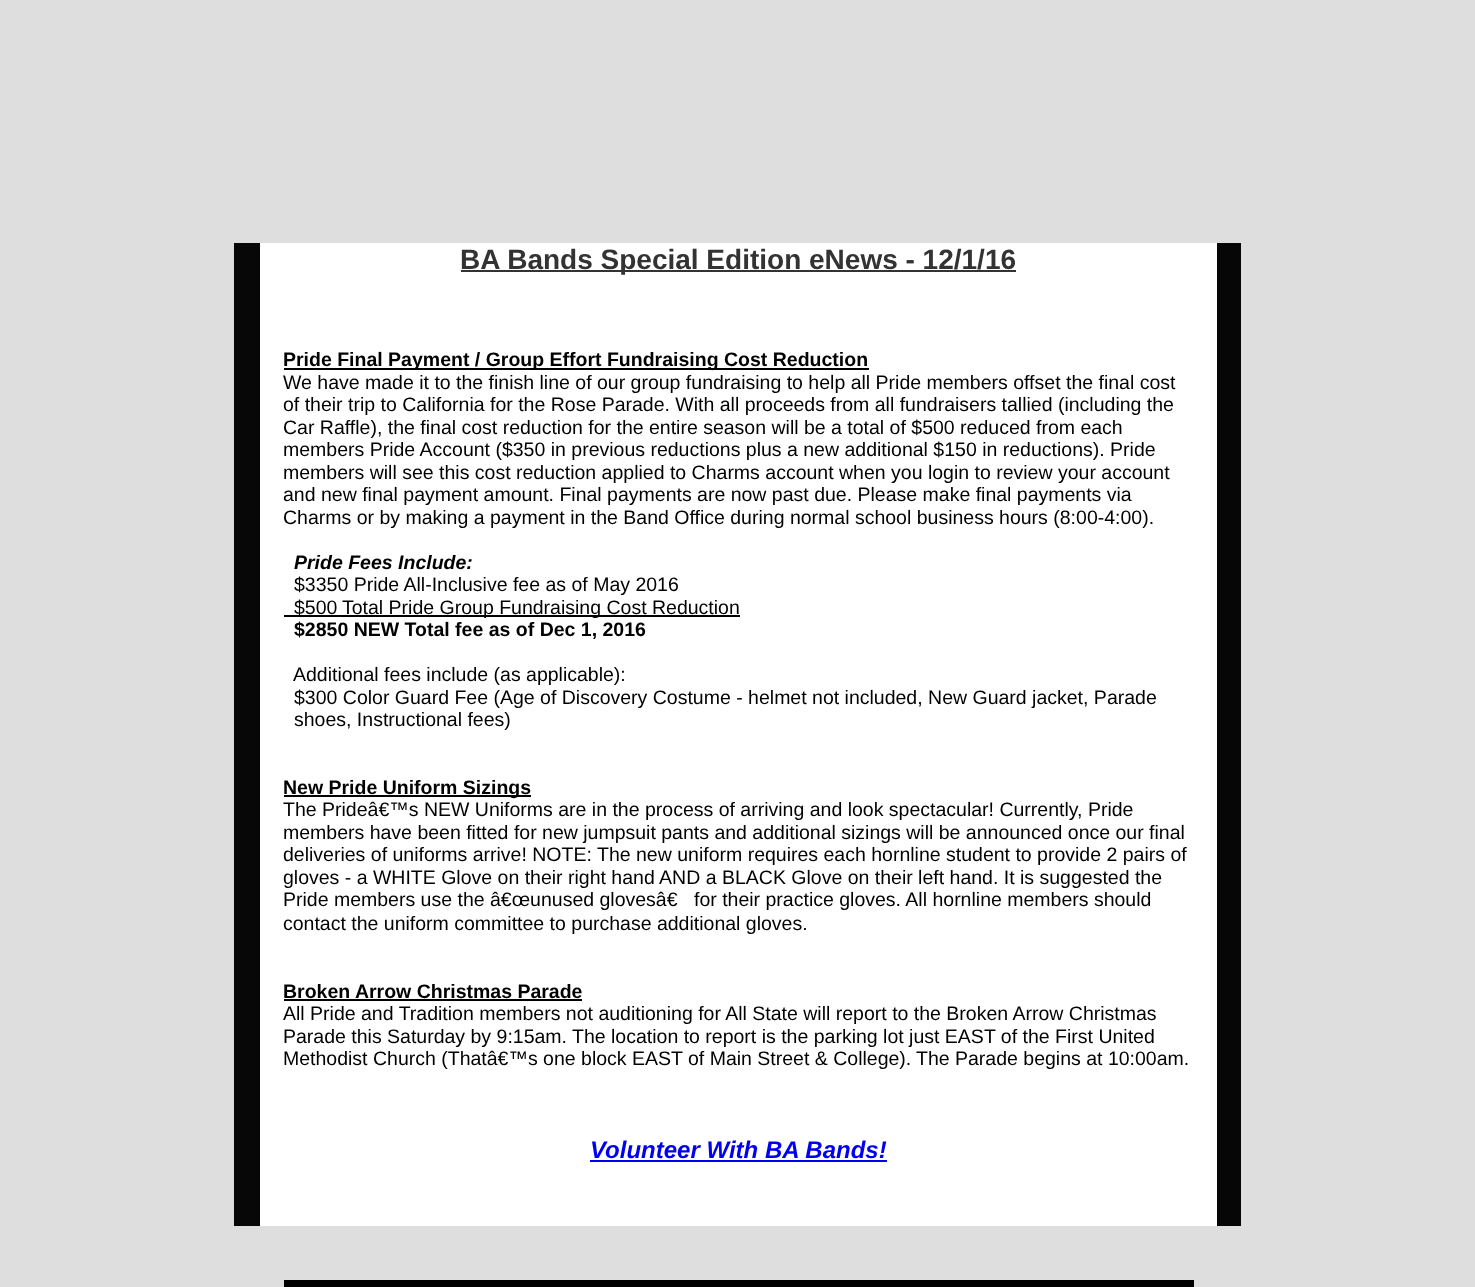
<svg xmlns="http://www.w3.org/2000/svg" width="1475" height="1287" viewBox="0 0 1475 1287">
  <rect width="100%" height="100%" fill="#dedede"/>
  <path d="M234 243h26v983H234z" fill="#070707"/>
  <path d="M260 243h957v983H260z" fill="#fff"/>
  <path d="M1217 243h24v983H1217z" fill="#060606"/>
  <path d="M461 270h555v2H461z" fill="#333"/>
  <path d="M284 368h585v2H284z" fill="#000"/>
  <path d="M284 615h456v2H284z" fill="#000"/>
  <path d="M284 795h247v2H284z" fill="#000"/>
  <path d="M284 999h298v2H284z" fill="#000"/>
  <path d="M590 1160h297v2H590z" fill="#00e"/>
  <path d="M284 1280h910v7H284z" fill="#000"/>
  <text x="460" y="269" font-family="Liberation Sans" font-size="28" font-weight="bold" fill="#333">BA Bands Special Edition eNews - 12/1/16</text>
  <text x="283" y="366" font-family="Liberation Sans" font-size="19.5" font-weight="bold" fill="#000">Pride Final Payment / Group Effort Fundraising Cost Reduction</text>
  <g font-family="Liberation Sans" font-size="19.5" fill="#000">
    <text x="283" y="389">We have made it to the finish line of our group fundraising to help all Pride members offset the final cost</text>
    <text x="283" y="411">of their trip to California for the Rose Parade. With all proceeds from all fundraisers tallied (including the</text>
    <text x="283" y="434">Car Raffle), the final cost reduction for the entire season will be a total of $500 reduced from each</text>
    <text x="283" y="456">members Pride Account ($350 in previous reductions plus a new additional $150 in reductions). Pride</text>
    <text x="283" y="479">members will see this cost reduction applied to Charms account when you login to review your account</text>
    <text x="283" y="501">and new final payment amount. Final payments are now past due. Please make final payments via</text>
    <text x="283" y="524">Charms or by making a payment in the Band Office during normal school business hours (8:00-4:00).</text>
  </g>
  <text x="294" y="569" font-family="Liberation Sans" font-size="19.5" font-weight="bold" font-style="italic" fill="#000">Pride Fees Include:</text>
  <g font-family="Liberation Sans" font-size="19.5" fill="#000">
    <text x="294" y="591">$3350 Pride All-Inclusive fee as of May 2016</text>
    <text x="294" y="614">$500</text>
    <text x="342" y="614">Total Pride Group Fundraising Cost Reduction</text>
  </g>
  <text x="294" y="636" font-family="Liberation Sans" font-size="19.5" font-weight="bold" fill="#000">$2850 NEW Total fee as of Dec 1, 2016</text>
  <g font-family="Liberation Sans" font-size="19.5" fill="#000">
    <text x="293" y="681">Additional fees include (as applicable):</text>
    <text x="294" y="704">$300 Color Guard Fee (Age of Discovery Costume - helmet not included, New Guard jacket, Parade</text>
    <text x="294" y="726">shoes, Instructional fees)</text>
  </g>
  <text x="283" y="794" font-family="Liberation Sans" font-size="19.5" font-weight="bold" fill="#000">New Pride Uniform Sizings</text>
  <g font-family="Liberation Sans" font-size="19.5" fill="#000">
    <text x="283" y="816">The Prideâ€™s NEW Uniforms are in the process of arriving and look spectacular! Currently, Pride</text>
    <text x="283" y="839">members have been fitted for new jumpsuit pants and additional sizings will be announced once our final</text>
    <text x="283" y="861">deliveries of uniforms arrive! NOTE:</text>
    <text x="597" y="861">The new uniform requires each hornline student to provide 2 pairs of</text>
    <text x="283" y="884">gloves - a WHITE Glove on their right hand AND a BLACK Glove on their left hand. It is suggested the</text>
    <text x="283" y="906">Pride members use the â€œunused glovesâ€</text>
    <text x="694" y="906">for their practice gloves. All hornline members should</text>
    <text x="283" y="930">contact the uniform committee to purchase additional gloves.</text>
  </g>
  <text x="283" y="998" font-family="Liberation Sans" font-size="19.5" font-weight="bold" fill="#000">Broken Arrow Christmas Parade</text>
  <g font-family="Liberation Sans" font-size="19.5" fill="#000">
    <text x="283" y="1020">All Pride and Tradition members not auditioning for All State will report to the Broken Arrow Christmas</text>
    <text x="283" y="1043">Parade this Saturday by 9:15am.</text>
    <text x="572" y="1043">The location to report is the parking lot just EAST of the First United</text>
    <text x="283" y="1065">Methodist Church (Thatâ€™s one block EAST of Main Street &amp; College).</text>
    <text x="916" y="1065">The Parade begins at 10:00am.</text>
  </g>
  <text x="590" y="1158" font-family="Liberation Sans" font-size="24" font-weight="bold" font-style="italic" fill="#00e">Volunteer With BA Bands!</text>
</svg>
